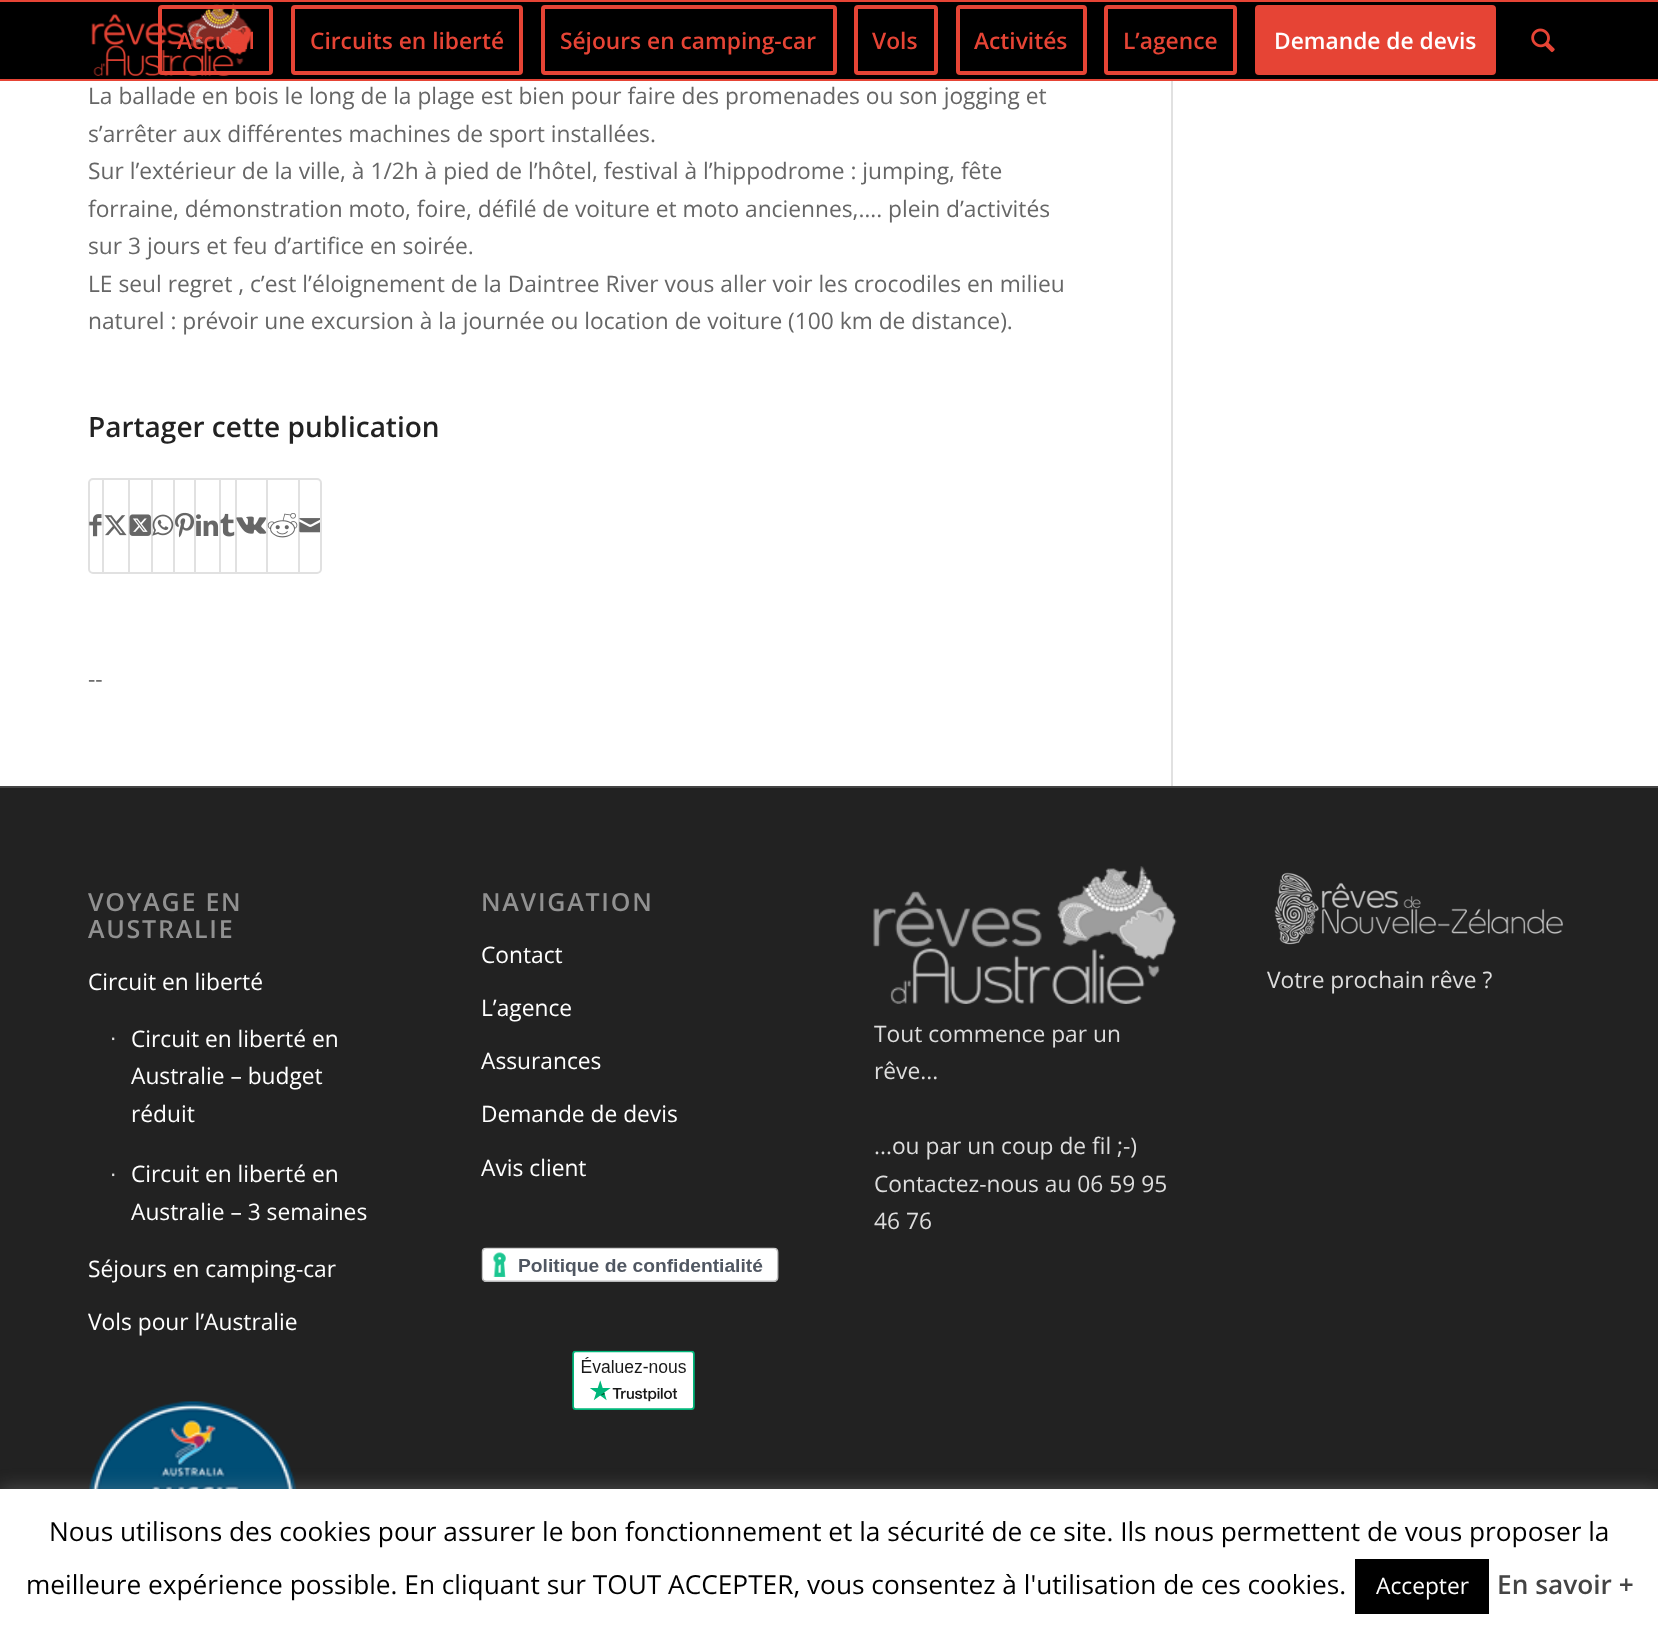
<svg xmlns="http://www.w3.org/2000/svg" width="1658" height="1633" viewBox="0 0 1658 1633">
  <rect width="100%" height="100%" fill="#fff"/>
  <path d="M0 2h1658v77H0z" fill="#000"/>
  <path d="M0 0h1658v2H0z" fill="#e64435"/>
  <path d="M0 79h1658v2H0z" fill="#e64435"/>
  <image x="91" y="3" width="162" height="73" href="img/1.png"/>
  <rect x="160" y="7" width="111" height="66" rx="2" fill="none" stroke="#e64435" stroke-width="4"/>
  <rect x="293" y="7" width="228" height="66" rx="2" fill="none" stroke="#e64435" stroke-width="4"/>
  <rect x="543" y="7" width="292" height="66" rx="2" fill="none" stroke="#e64435" stroke-width="4"/>
  <rect x="856" y="7" width="80" height="66" rx="2" fill="none" stroke="#e64435" stroke-width="4"/>
  <rect x="958" y="7" width="127" height="66" rx="2" fill="none" stroke="#e64435" stroke-width="4"/>
  <rect x="1106" y="7" width="129" height="66" rx="2" fill="none" stroke="#e64435" stroke-width="4"/>
  <rect x="1257" y="7" width="237" height="66" rx="2" fill="#e64435" stroke="#e64435" stroke-width="4"/>
  <image x="1531" y="28" width="24" height="25" href="img/2.png"/>
  <path d="M1171 81h2v705H1171z" fill="#e1e1e1"/>
  <rect x="89" y="479" width="232" height="94" rx="4" fill="none" stroke="#e1e1e1" stroke-width="2"/>
  <image x="89" y="514" width="13" height="23" href="img/3.png"/>
  <path d="M102 480h2v92H102z" fill="#e1e1e1"/>
  <image x="104" y="515" width="23" height="21" href="img/4.png"/>
  <path d="M128 480h2v92H128z" fill="#e1e1e1"/>
  <image x="129" y="514" width="22" height="22" href="img/5.png"/>
  <path d="M151 480h2v92H151z" fill="#e1e1e1"/>
  <path d="M173 480h2v92H173z" fill="#e1e1e1"/>
  <image x="152" y="514" width="22" height="22" href="img/6.png"/>
  <image x="175" y="512" width="19" height="26" href="img/7.png"/>
  <path d="M194 480h2v92H194z" fill="#e1e1e1"/>
  <image x="196" y="514" width="23" height="22" href="img/8.png"/>
  <path d="M219 480h2v92H219z" fill="#e1e1e1"/>
  <image x="220" y="513" width="15" height="24" href="img/9.png"/>
  <path d="M235 480h2v92H235z" fill="#e1e1e1"/>
  <path d="M266 480h2v92H266z" fill="#e1e1e1"/>
  <image x="236" y="516" width="31" height="18" href="img/10.png"/>
  <image x="267" y="513" width="31" height="25" href="img/11.png"/>
  <path d="M298 480h2v92H298z" fill="#e1e1e1"/>
  <image x="299" y="518" width="21" height="15" href="img/12.png"/>
  <path d="M0 788h1658v701H0z" fill="#222"/>
  <path d="M0 786h1658v2H0z" fill="#444"/>
  <image x="88" y="1401" width="209" height="88" href="img/13.png"/>
  <image x="481" y="1247" width="298" height="35" href="img/14.png"/>
  <image x="572" y="1350" width="123" height="60" href="img/15.png"/>
  <image x="1274" y="872" width="289" height="73" href="img/16.png"/>
  <image x="873" y="866" width="304" height="138" href="img/17.png"/>
  <path d="M0 1488h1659v145H0z" fill="#acabab4d" filter="blur(9px)"/>
  <path d="M0 1489h1658v144H0z" fill="#fff"/>
  <path d="M1355 1559h134v55H1355z" fill="#000"/>
  <g font-family="Open Sans" font-size="22.75" font-weight="600" fill="#e64435">
    <text x="177" y="49">Accueil</text>
    <text x="310" y="49">Circuits en liberté</text>
    <text x="560" y="49">Séjours en camping-car</text>
    <text x="872" y="49">Vols</text>
    <text x="974" y="49">Activités</text>
    <text x="1123" y="49">L’agence</text>
  </g>
  <text x="1274" y="49" font-family="Open Sans" font-size="22.75" font-weight="600" fill="#fff">Demande de devis</text>
  <g font-family="Open Sans" font-size="22.75" fill="#666">
    <text x="88" y="104">La ballade en bois le long de la plage est bien pour faire des promenades ou son jogging et</text>
    <text x="88" y="142">s’arrêter aux différentes machines de sport installées.</text>
    <text x="88" y="179">Sur l’extérieur de la ville, à 1/2h à pied de l’hôtel, festival à l’hippodrome : jumping, fête</text>
    <text x="88" y="217">forraine, démonstration moto, foire, défilé de voiture et moto anciennes,…. plein d’activités</text>
    <text x="88" y="254">sur 3 jours et feu d’artifice en soirée.</text>
    <text x="88" y="292">LE seul regret , c’est l’éloignement de la Daintree River vous aller voir les crocodiles en milieu</text>
    <text x="88" y="329">naturel : prévoir une excursion à la journée ou location de voiture (100 km de distance).</text>
  </g>
  <text x="88" y="437" font-family="Open Sans" font-size="28" font-weight="600" fill="#222">Partager cette publication</text>
  <text x="88" y="687" font-family="Open Sans" font-size="22.75" fill="#666">--</text>
  <g font-family="Open Sans" font-size="25" font-weight="600" letter-spacing="1.75" fill="#919191">
    <text x="88" y="911">VOYAGE EN</text>
    <text x="88" y="938">AUSTRALIE</text>
  </g>
  <text x="88" y="990" font-family="Open Sans" font-size="22.75" fill="#fff">Circuit en liberté</text>
  <text x="110" y="1045" font-family="Liberation Sans" font-size="22.75" fill="#ddd">∙</text>
  <g font-family="Open Sans" font-size="22.75" fill="#fff">
    <text x="131" y="1047">Circuit en liberté en</text>
    <text x="131" y="1084">Australie – budget</text>
    <text x="131" y="1122">réduit</text>
  </g>
  <text x="110" y="1181" font-family="Liberation Sans" font-size="22.75" fill="#ddd">∙</text>
  <g font-family="Open Sans" font-size="22.75" fill="#fff">
    <text x="131" y="1182">Circuit en liberté en</text>
    <text x="131" y="1220">Australie – 3 semaines</text>
    <text x="88" y="1277">Séjours en camping-car</text>
    <text x="88" y="1330">Vols pour l’Australie</text>
  </g>
  <text x="481" y="911" font-family="Open Sans" font-size="25" font-weight="600" letter-spacing="1.75" fill="#919191">NAVIGATION</text>
  <g font-family="Open Sans" font-size="22.75" fill="#fff">
    <text x="481" y="963">Contact</text>
    <text x="481" y="1016">L’agence</text>
    <text x="481" y="1069">Assurances</text>
    <text x="481" y="1122">Demande de devis</text>
    <text x="481" y="1176">Avis client</text>
  </g>
  <g font-family="Open Sans" font-size="22.75" fill="#ddd">
    <text x="1267" y="988">Votre prochain rêve ?</text>
    <text x="874" y="1042">Tout commence par un</text>
    <text x="874" y="1079">rêve...</text>
    <text x="874" y="1154">...ou par un coup de fil ;-)</text>
    <text x="874" y="1192">Contactez-nous au 06 59 95</text>
    <text x="874" y="1229">46 76</text>
  </g>
  <g font-family="Open Sans" font-size="26.25" fill="#000">
    <text x="49" y="1541">Nous utilisons des cookies pour assurer le bon fonctionnement et la sécurité de ce site. Ils nous permettent de vous proposer la</text>
    <text x="26" y="1594">meilleure expérience possible. En cliquant sur TOUT ACCEPTER, vous consentez à l'utilisation de ces cookies.</text>
  </g>
  <text x="1376" y="1594" font-family="Open Sans" font-size="22.75" fill="#fff">Accepter</text>
  <text x="1497" y="1594" font-family="Open Sans" font-size="26.25" font-weight="600" fill="#444">En savoir +</text>
</svg>
